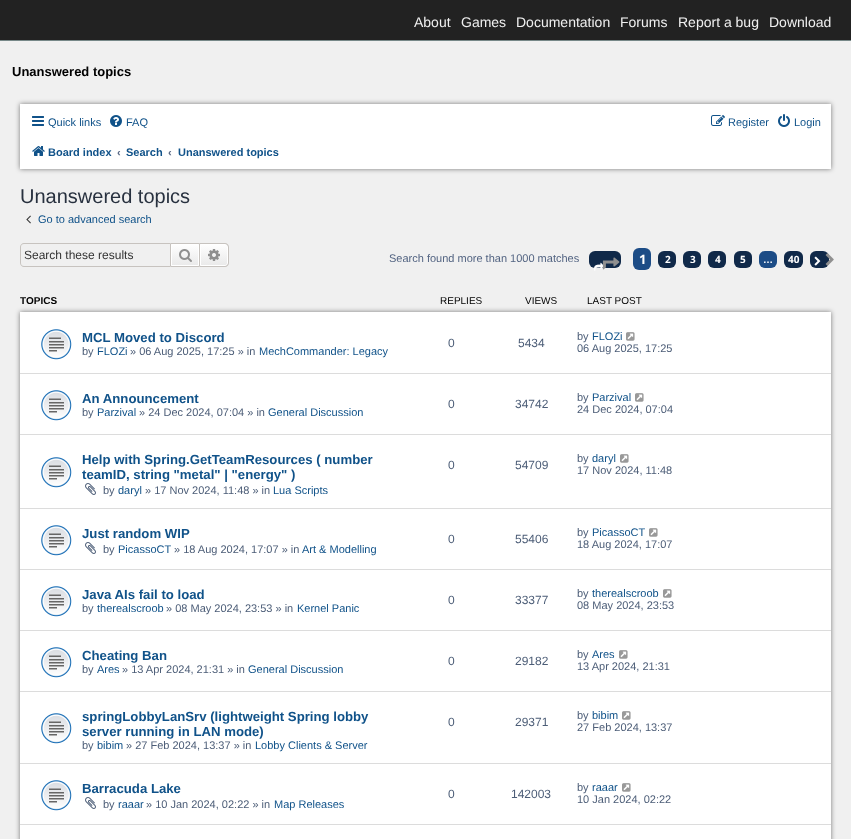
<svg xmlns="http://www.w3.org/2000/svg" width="851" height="839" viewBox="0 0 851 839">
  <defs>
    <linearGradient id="g1" gradientUnits="userSpaceOnUse" x1="185" y1="244" x2="185" y2="266"><stop offset="0" stop-color="#fff"/><stop offset="1" stop-color="#e9e9e9"/></linearGradient>
    <linearGradient id="g2" gradientUnits="userSpaceOnUse" x1="214" y1="244" x2="214" y2="266"><stop offset="0" stop-color="#fff"/><stop offset="1" stop-color="#e9e9e9"/></linearGradient>
  </defs>
  <rect width="100%" height="100%" fill="#f0f0f0"/>
  <path d="M0 0h851v40H0z" fill="#222"/>
  <path d="M0 40h851v1H0z" fill="#788"/>
  <path d="M20 104h811v65H20z" fill="#00000080" filter="blur(2.5px)"/>
  <path d="M20 104h811v65H20z" fill="#fff"/>
  <image x="32" y="116" width="12" height="10" href="img/1.png"/>
  <image x="110" y="115" width="12" height="12" href="img/2.png"/>
  <image x="711" y="115" width="14" height="11" href="img/3.png"/>
  <image x="778" y="114" width="12" height="13" href="img/4.png"/>
  <image x="32" y="146" width="13" height="10" href="img/5.png"/>
  <image x="26" y="215" width="5" height="9" href="img/6.png"/>
  <path d="M24 243H170V267H24C22 267 20 265 20 263V247C20 245 22 243 24 243ZM24 244H170V266H24C22 266 21 265 21 263V247C21 245 22 244 24 244Z" fill="#c7c3bf" fill-rule="evenodd"/>
  <path d="M172 245h26v20H172z" fill="url(#g1)"/>
  <path d="M171.5 244.5h27v21H171.5z" fill="none" stroke="#fff"/>
  <path d="M170.5 243.5h29v23H170.5z" fill="none" stroke="#c7c3bf"/>
  <image x="179" y="249" width="13" height="13" href="img/7.png"/>
  <path d="M200.5 244.5H225C226.5 244.5 227.5 245.5 227.5 247V263C227.5 264.5 226.5 265.5 225 265.5H200.5Z" fill="url(#g2)" stroke="#fff"/>
  <path d="M200 243H225C227 243 229 245 229 247V263C229 265 227 267 225 267H200ZM200 244H225C226.5 244 228 245.5 228 247V263C228 264.5 226.5 266 225 266H200Z" fill="#c7c3bf" fill-rule="evenodd"/>
  <image x="208" y="249" width="12" height="12" href="img/8.png"/>
  <rect x="589" y="251" width="32" height="17" rx="6" fill="#102949"/>
  <image x="594" y="262" width="9" height="9" href="img/9.png"/>
  <image x="602" y="257" width="18" height="13" href="img/10.png"/>
  <rect x="633" y="248" width="18" height="22" rx="6" fill="#1c4c86"/>
  <rect x="658" y="251" width="18" height="17" rx="6" fill="#102949"/>
  <rect x="683" y="251" width="18" height="17" rx="6" fill="#102949"/>
  <rect x="708" y="251" width="18" height="17" rx="6" fill="#102949"/>
  <rect x="734" y="251" width="18" height="17" rx="6" fill="#102949"/>
  <rect x="759" y="251" width="18" height="17" rx="6" fill="#1c4c86"/>
  <rect x="784" y="251" width="19" height="17" rx="6" fill="#102949"/>
  <rect x="810" y="251" width="19" height="17" rx="6" fill="#102949"/>
  <image x="814" y="256" width="7" height="10" href="img/11.png"/>
  <image x="825" y="253" width="9" height="13" href="img/12.png"/>
  <path d="M20 312h811v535H20z" fill="#00000080" filter="blur(2.5px)"/>
  <path d="M20 312h811v527H20z" fill="#fff"/>
  <path d="M20 373h811v1H20z" fill="#dcdcdc"/>
  <image x="41" y="329" width="31" height="31" href="img/13.png"/>
  <image x="626" y="332" width="9" height="9" href="img/14.png"/>
  <path d="M20 434h811v1H20z" fill="#dcdcdc"/>
  <image x="41" y="390" width="31" height="31" href="img/13.png"/>
  <image x="635" y="393" width="9" height="9" href="img/14.png"/>
  <path d="M20 508h811v1H20z" fill="#dcdcdc"/>
  <image x="41" y="457" width="31" height="31" href="img/13.png"/>
  <image x="85" y="483" width="11" height="12" href="img/15.png"/>
  <image x="620" y="454" width="9" height="9" href="img/14.png"/>
  <path d="M20 569h811v1H20z" fill="#dcdcdc"/>
  <image x="41" y="525" width="31" height="31" href="img/13.png"/>
  <image x="85" y="542" width="11" height="12" href="img/15.png"/>
  <image x="649" y="528" width="9" height="9" href="img/14.png"/>
  <path d="M20 630h811v1H20z" fill="#dcdcdc"/>
  <image x="41" y="586" width="31" height="31" href="img/13.png"/>
  <image x="663" y="589" width="9" height="9" href="img/14.png"/>
  <path d="M20 691h811v1H20z" fill="#dcdcdc"/>
  <image x="41" y="647" width="31" height="31" href="img/13.png"/>
  <image x="619" y="650" width="9" height="9" href="img/14.png"/>
  <path d="M20 763h811v1H20z" fill="#dcdcdc"/>
  <image x="41" y="713" width="31" height="31" href="img/13.png"/>
  <image x="622" y="711" width="9" height="9" href="img/14.png"/>
  <path d="M20 824h811v1H20z" fill="#dcdcdc"/>
  <image x="41" y="780" width="31" height="31" href="img/13.png"/>
  <image x="85" y="797" width="11" height="12" href="img/15.png"/>
  <image x="622" y="783" width="9" height="9" href="img/14.png"/>
  <g font-family="Liberation Sans" font-size="14" fill="#f0f0f0">
    <text x="414" y="27">About</text>
    <text x="461" y="27">Games</text>
    <text x="516" y="27">Documentation</text>
    <text x="620" y="27">Forums</text>
    <text x="678" y="27">Report a bug</text>
    <text x="769" y="27">Download</text>
  </g>
  <text x="12" y="76" font-family="Liberation Sans" font-size="13" font-weight="bold" fill="#000">Unanswered topics</text>
  <g font-family="Liberation Sans" font-size="11" fill="#105289">
    <text x="48" y="126">Quick links</text>
    <text x="126" y="126">FAQ</text>
    <text x="728" y="126">Register</text>
    <text x="794" y="126">Login</text>
  </g>
  <text x="48" y="156" font-family="Liberation Sans" font-size="11" font-weight="bold" fill="#105289">Board index</text>
  <text x="117" y="156" font-family="Liberation Sans" font-size="11" font-weight="bold" fill="#536482">‹</text>
  <text x="126" y="156" font-family="Liberation Sans" font-size="11" font-weight="bold" fill="#105289">Search</text>
  <text x="168" y="156" font-family="Liberation Sans" font-size="11" font-weight="bold" fill="#536482">‹</text>
  <text x="178" y="156" font-family="Liberation Sans" font-size="11" font-weight="bold" fill="#105289">Unanswered topics</text>
  <text x="20" y="203" font-family="Liberation Sans" font-size="20" fill="#28313f">Unanswered topics</text>
  <text x="38" y="223" font-family="Liberation Sans" font-size="11" fill="#105289">Go to advanced search</text>
  <text x="24" y="259" font-family="Liberation Sans" font-size="12" fill="#333">Search these results</text>
  <text x="389" y="262" font-family="Liberation Sans" font-size="11" fill="#536482">Search found more than 1000 matches</text>
  <text x="639" y="264" font-family="Open Sans" font-size="13" font-weight="bold" fill="#fff">1</text>
  <g font-family="Open Sans" font-size="10" font-weight="bold" fill="#fff">
    <text x="665" y="263">2</text>
    <text x="690" y="263">3</text>
    <text x="715" y="263">4</text>
    <text x="740" y="263">5</text>
  </g>
  <text x="763" y="263" font-family="Liberation Sans" font-size="10" font-weight="bold" fill="#fff">…</text>
  <text x="788" y="263" font-family="Open Sans" font-size="10" font-weight="bold" fill="#fff">40</text>
  <text x="20" y="304" font-family="Liberation Sans" font-size="10" font-weight="bold" fill="#000">TOPICS</text>
  <g font-family="Liberation Sans" font-size="10" fill="#000">
    <text x="440" y="304">REPLIES</text>
    <text x="525" y="304">VIEWS</text>
    <text x="587" y="304">LAST POST</text>
  </g>
  <text x="82" y="342" font-family="Liberation Sans" font-size="13.2" font-weight="bold" fill="#105289">MCL Moved to Discord</text>
  <text x="82" y="355" font-family="Liberation Sans" font-size="11" fill="#4c5d77">by</text>
  <text x="97" y="355" font-family="Liberation Sans" font-size="11" fill="#105289">FLOZi</text>
  <text x="130" y="355" font-family="Liberation Sans" font-size="11" fill="#4c5d77">» 06 Aug 2025, 17:25 » in</text>
  <text x="259" y="355" font-family="Liberation Sans" font-size="11" fill="#105289">MechCommander: Legacy</text>
  <g font-family="Liberation Sans" font-size="12" fill="#4c5d77">
    <text x="448" y="347">0</text>
    <text x="518" y="347">5434</text>
  </g>
  <text x="577" y="340" font-family="Liberation Sans" font-size="11" fill="#4c5d77">by</text>
  <text x="592" y="340" font-family="Liberation Sans" font-size="11" fill="#105289">FLOZi</text>
  <text x="577" y="352" font-family="Liberation Sans" font-size="11" fill="#4c5d77">06 Aug 2025, 17:25</text>
  <text x="82" y="403" font-family="Liberation Sans" font-size="13.2" font-weight="bold" fill="#105289">An Announcement</text>
  <text x="82" y="416" font-family="Liberation Sans" font-size="11" fill="#4c5d77">by</text>
  <text x="97" y="416" font-family="Liberation Sans" font-size="11" fill="#105289">Parzival</text>
  <text x="139" y="416" font-family="Liberation Sans" font-size="11" fill="#4c5d77">» 24 Dec 2024, 07:04 » in</text>
  <text x="268" y="416" font-family="Liberation Sans" font-size="11" fill="#105289">General Discussion</text>
  <g font-family="Liberation Sans" font-size="12" fill="#4c5d77">
    <text x="448" y="408">0</text>
    <text x="515" y="408">34742</text>
  </g>
  <text x="577" y="401" font-family="Liberation Sans" font-size="11" fill="#4c5d77">by</text>
  <text x="592" y="401" font-family="Liberation Sans" font-size="11" fill="#105289">Parzival</text>
  <text x="577" y="413" font-family="Liberation Sans" font-size="11" fill="#4c5d77">24 Dec 2024, 07:04</text>
  <g font-family="Liberation Sans" font-size="13.2" font-weight="bold" fill="#105289">
    <text x="82" y="464">Help with Spring.GetTeamResources ( number</text>
    <text x="82" y="479">teamID, string "metal" | "energy" )</text>
  </g>
  <text x="103" y="494" font-family="Liberation Sans" font-size="11" fill="#4c5d77">by</text>
  <text x="118" y="494" font-family="Liberation Sans" font-size="11" fill="#105289">daryl</text>
  <text x="145" y="494" font-family="Liberation Sans" font-size="11" fill="#4c5d77">» 17 Nov 2024, 11:48 » in</text>
  <text x="273" y="494" font-family="Liberation Sans" font-size="11" fill="#105289">Lua Scripts</text>
  <g font-family="Liberation Sans" font-size="12" fill="#4c5d77">
    <text x="448" y="469">0</text>
    <text x="515" y="469">54709</text>
  </g>
  <text x="577" y="462" font-family="Liberation Sans" font-size="11" fill="#4c5d77">by</text>
  <text x="592" y="462" font-family="Liberation Sans" font-size="11" fill="#105289">daryl</text>
  <text x="577" y="474" font-family="Liberation Sans" font-size="11" fill="#4c5d77">17 Nov 2024, 11:48</text>
  <text x="82" y="538" font-family="Liberation Sans" font-size="13.2" font-weight="bold" fill="#105289">Just random WIP</text>
  <text x="103" y="553" font-family="Liberation Sans" font-size="11" fill="#4c5d77">by</text>
  <text x="118" y="553" font-family="Liberation Sans" font-size="11" fill="#105289">PicassoCT</text>
  <text x="174" y="553" font-family="Liberation Sans" font-size="11" fill="#4c5d77">» 18 Aug 2024, 17:07 » in</text>
  <text x="302" y="553" font-family="Liberation Sans" font-size="11" fill="#105289">Art &amp; Modelling</text>
  <g font-family="Liberation Sans" font-size="12" fill="#4c5d77">
    <text x="448" y="543">0</text>
    <text x="515" y="543">55406</text>
  </g>
  <text x="577" y="536" font-family="Liberation Sans" font-size="11" fill="#4c5d77">by</text>
  <text x="592" y="536" font-family="Liberation Sans" font-size="11" fill="#105289">PicassoCT</text>
  <text x="577" y="548" font-family="Liberation Sans" font-size="11" fill="#4c5d77">18 Aug 2024, 17:07</text>
  <text x="82" y="599" font-family="Liberation Sans" font-size="13.2" font-weight="bold" fill="#105289">Java AIs fail to load</text>
  <text x="82" y="612" font-family="Liberation Sans" font-size="11" fill="#4c5d77">by</text>
  <text x="97" y="612" font-family="Liberation Sans" font-size="11" fill="#105289">therealscroob</text>
  <text x="166" y="612" font-family="Liberation Sans" font-size="11" fill="#4c5d77">» 08 May 2024, 23:53 » in</text>
  <text x="297" y="612" font-family="Liberation Sans" font-size="11" fill="#105289">Kernel Panic</text>
  <g font-family="Liberation Sans" font-size="12" fill="#4c5d77">
    <text x="448" y="604">0</text>
    <text x="515" y="604">33377</text>
  </g>
  <text x="577" y="597" font-family="Liberation Sans" font-size="11" fill="#4c5d77">by</text>
  <text x="592" y="597" font-family="Liberation Sans" font-size="11" fill="#105289">therealscroob</text>
  <text x="577" y="609" font-family="Liberation Sans" font-size="11" fill="#4c5d77">08 May 2024, 23:53</text>
  <text x="82" y="660" font-family="Liberation Sans" font-size="13.2" font-weight="bold" fill="#105289">Cheating Ban</text>
  <text x="82" y="673" font-family="Liberation Sans" font-size="11" fill="#4c5d77">by</text>
  <text x="97" y="673" font-family="Liberation Sans" font-size="11" fill="#105289">Ares</text>
  <text x="122" y="673" font-family="Liberation Sans" font-size="11" fill="#4c5d77">» 13 Apr 2024, 21:31 » in</text>
  <text x="248" y="673" font-family="Liberation Sans" font-size="11" fill="#105289">General Discussion</text>
  <g font-family="Liberation Sans" font-size="12" fill="#4c5d77">
    <text x="448" y="665">0</text>
    <text x="515" y="665">29182</text>
  </g>
  <text x="577" y="658" font-family="Liberation Sans" font-size="11" fill="#4c5d77">by</text>
  <text x="592" y="658" font-family="Liberation Sans" font-size="11" fill="#105289">Ares</text>
  <text x="577" y="670" font-family="Liberation Sans" font-size="11" fill="#4c5d77">13 Apr 2024, 21:31</text>
  <g font-family="Liberation Sans" font-size="13.2" font-weight="bold" fill="#105289">
    <text x="82" y="721">springLobbyLanSrv (lightweight Spring lobby</text>
    <text x="82" y="736">server running in LAN mode)</text>
  </g>
  <text x="82" y="749" font-family="Liberation Sans" font-size="11" fill="#4c5d77">by</text>
  <text x="97" y="749" font-family="Liberation Sans" font-size="11" fill="#105289">bibim</text>
  <text x="126" y="749" font-family="Liberation Sans" font-size="11" fill="#4c5d77">» 27 Feb 2024, 13:37 » in</text>
  <text x="255" y="749" font-family="Liberation Sans" font-size="11" fill="#105289">Lobby Clients &amp; Server</text>
  <g font-family="Liberation Sans" font-size="12" fill="#4c5d77">
    <text x="448" y="726">0</text>
    <text x="515" y="726">29371</text>
  </g>
  <text x="577" y="719" font-family="Liberation Sans" font-size="11" fill="#4c5d77">by</text>
  <text x="592" y="719" font-family="Liberation Sans" font-size="11" fill="#105289">bibim</text>
  <text x="577" y="731" font-family="Liberation Sans" font-size="11" fill="#4c5d77">27 Feb 2024, 13:37</text>
  <text x="82" y="793" font-family="Liberation Sans" font-size="13.2" font-weight="bold" fill="#105289">Barracuda Lake</text>
  <text x="103" y="808" font-family="Liberation Sans" font-size="11" fill="#4c5d77">by</text>
  <text x="118" y="808" font-family="Liberation Sans" font-size="11" fill="#105289">raaar</text>
  <text x="146" y="808" font-family="Liberation Sans" font-size="11" fill="#4c5d77">» 10 Jan 2024, 02:22 » in</text>
  <text x="274" y="808" font-family="Liberation Sans" font-size="11" fill="#105289">Map Releases</text>
  <g font-family="Liberation Sans" font-size="12" fill="#4c5d77">
    <text x="448" y="798">0</text>
    <text x="511" y="798">142003</text>
  </g>
  <text x="577" y="791" font-family="Liberation Sans" font-size="11" fill="#4c5d77">by</text>
  <text x="592" y="791" font-family="Liberation Sans" font-size="11" fill="#105289">raaar</text>
  <text x="577" y="803" font-family="Liberation Sans" font-size="11" fill="#4c5d77">10 Jan 2024, 02:22</text>
</svg>
